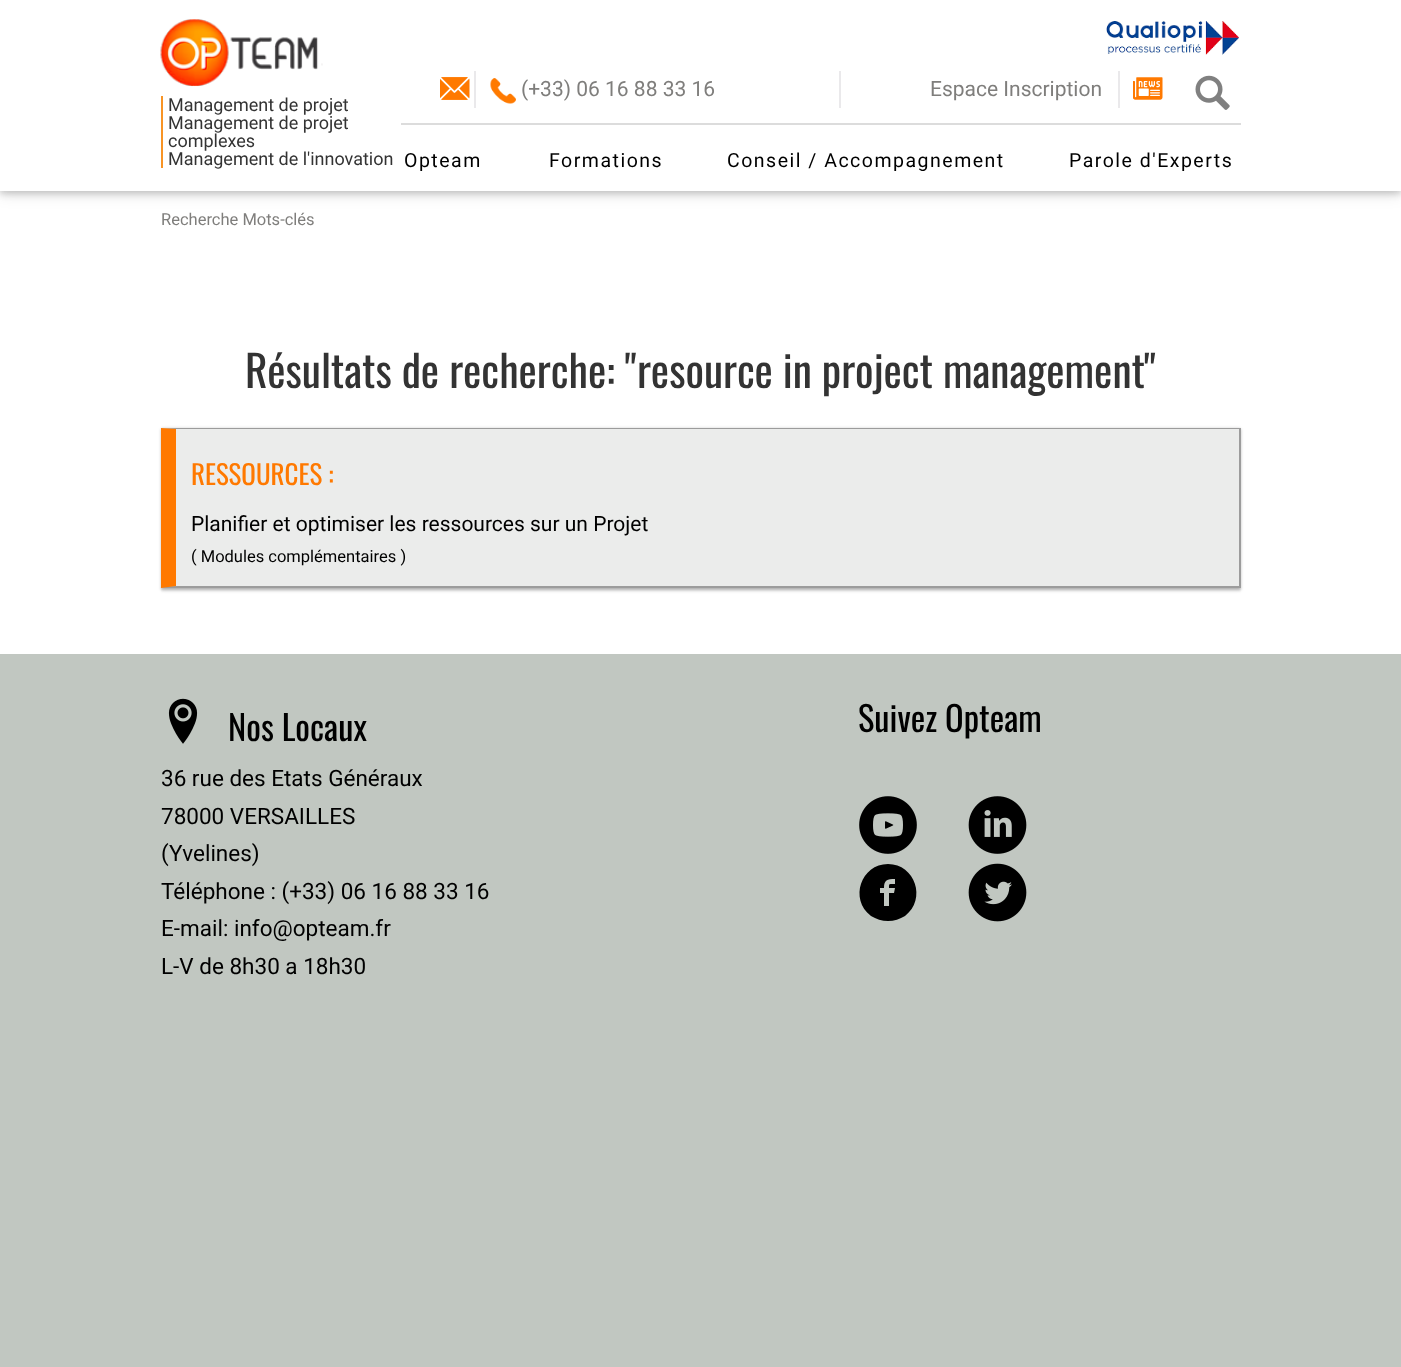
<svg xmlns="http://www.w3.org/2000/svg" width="1401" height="1367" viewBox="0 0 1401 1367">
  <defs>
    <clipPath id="clip1"><path d="M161 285h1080v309H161z"/></clipPath>
    <clipPath id="clip2"><path d="M161 285h1080v309H161z"/></clipPath>
  </defs>
  <rect width="100%" height="100%" fill="#fff"/>
  <path d="M0 3h1401v191H0z" fill="#0000001f" filter="blur(7.5px)"/>
  <path d="M0 3h1401v191H0z" fill="#00000029" filter="blur(3px)"/>
  <path d="M0 0h1401v191H0z" fill="#fff"/>
  <image x="160" y="19" width="163" height="68" href="img/1.png"/>
  <path d="M161 96h2v72H161z" fill="#f89425"/>
  <image x="1106" y="21" width="133" height="34" href="img/2.png"/>
  <path d="M474 71h2v37H474z" fill="#eae9eb"/>
  <image x="440" y="77" width="30" height="23" href="img/3.png"/>
  <image x="490" y="78" width="26" height="26" href="img/4.png"/>
  <path d="M1118 71h2v37H1118z" fill="#eae9eb"/>
  <path d="M839 71h2v37H839z" fill="#eae9eb"/>
  <image x="1133" y="77" width="30" height="23" href="img/5.png"/>
  <image x="1195" y="75" width="35" height="35" href="img/6.png"/>
  <path d="M401 123h840v2H401z" fill="#dcdcdc"/>
  <path d="M161 429h1080v161H161z" fill="#0000003d" filter="blur(1.5px)"/>
  <g clip-path="url(#clip1)">
    <path d="M161 429h1080v161H161z" fill="#0000001f" filter="blur(2px)"/>
  </g>
  <path d="M176 429h1063v157H176z" fill="#ebeceb"/>
  <path d="M160 428H1240L1239 429H176Z" fill="#9c9c9c"/>
  <path d="M1239 428h2v160H1239z" fill="#9c9c9c"/>
  <path d="M1240 588H160L176 586H1239Z" fill="#9c9c9c"/>
  <g clip-path="url(#clip2)">
    <path d="M160 588V428L176 429V586Z" fill="#ff7900"/>
  </g>
  <path d="M0 654h1401v713H0z" fill="#c1c7c1"/>
  <image x="168" y="698" width="30" height="46" href="img/7.png"/>
  <image x="859" y="796" width="58" height="58" href="img/8.png"/>
  <image x="968" y="796" width="59" height="58" href="img/9.png"/>
  <path d="M888 864C861 864 849 899 871 916C876 919 882 921 888 921C894 921 900 919 905 916C927 899 915 864 888 864ZM895 884C889 884 889 883 889 888H895L894 893H889V906H884V893H880V888H884C884 880 887 879 895 879Z" fill="#000"/>
  <image x="968" y="863" width="59" height="59" href="img/10.png"/>
  <g font-family="Roboto" font-size="18" fill="#333">
    <text x="168" y="111">Management de projet</text>
    <text x="168" y="129">Management de projet</text>
    <text x="168" y="147">complexes</text>
    <text x="168" y="165">Management de l'innovation</text>
  </g>
  <g font-family="Roboto" font-size="21" fill="#7f7e7c">
    <text x="521" y="96">(+33) 06 16 88 33 16</text>
    <text x="930" y="96">Espace Inscription</text>
  </g>
  <g font-family="Roboto" font-size="19.5" letter-spacing="1.5" fill="#000">
    <text x="404" y="167">Opteam</text>
    <text x="549" y="167">Formations</text>
    <text x="727" y="167">Conseil / Accompagnement</text>
    <text x="1069" y="167">Parole d'Experts</text>
  </g>
  <text x="161" y="225" font-family="Roboto" font-size="16.5" fill="#7f7e7c">Recherche Mots-clés</text>
  <g font-family="Oswald" font-size="43.5" fill="#333">
    <text x="245" y="388">Résultats de recherche: "</text>
    <text x="637" y="388">resource in project management</text>
    <text x="1144" y="388">"</text>
  </g>
  <text x="191" y="485" font-family="Oswald" font-size="27" fill="#ff7900">RESSOURCES :</text>
  <text x="191" y="531" font-family="Roboto" font-size="21" fill="#000">Planifier et optimiser les ressources sur un Projet</text>
  <text x="191" y="562" font-family="Roboto" font-size="16.5" fill="#000">( Modules complémentaires )</text>
  <text x="228" y="741" font-family="Oswald" font-size="34.5" fill="#000">Nos Locaux</text>
  <g font-family="Roboto" font-size="22.5" fill="#000">
    <text x="161" y="786">36 rue des Etats Généraux</text>
    <text x="161" y="824">78000 VERSAILLES</text>
    <text x="161" y="861">(Yvelines)</text>
    <text x="161" y="899">Téléphone : (+33) 06 16 88 33 16</text>
    <text x="161" y="936">E-mail: info@opteam.fr</text>
    <text x="161" y="974">L-V de 8h30 a 18h30</text>
  </g>
  <text x="858" y="732" font-family="Oswald" font-size="34.5" fill="#000">Suivez Opteam</text>
</svg>
